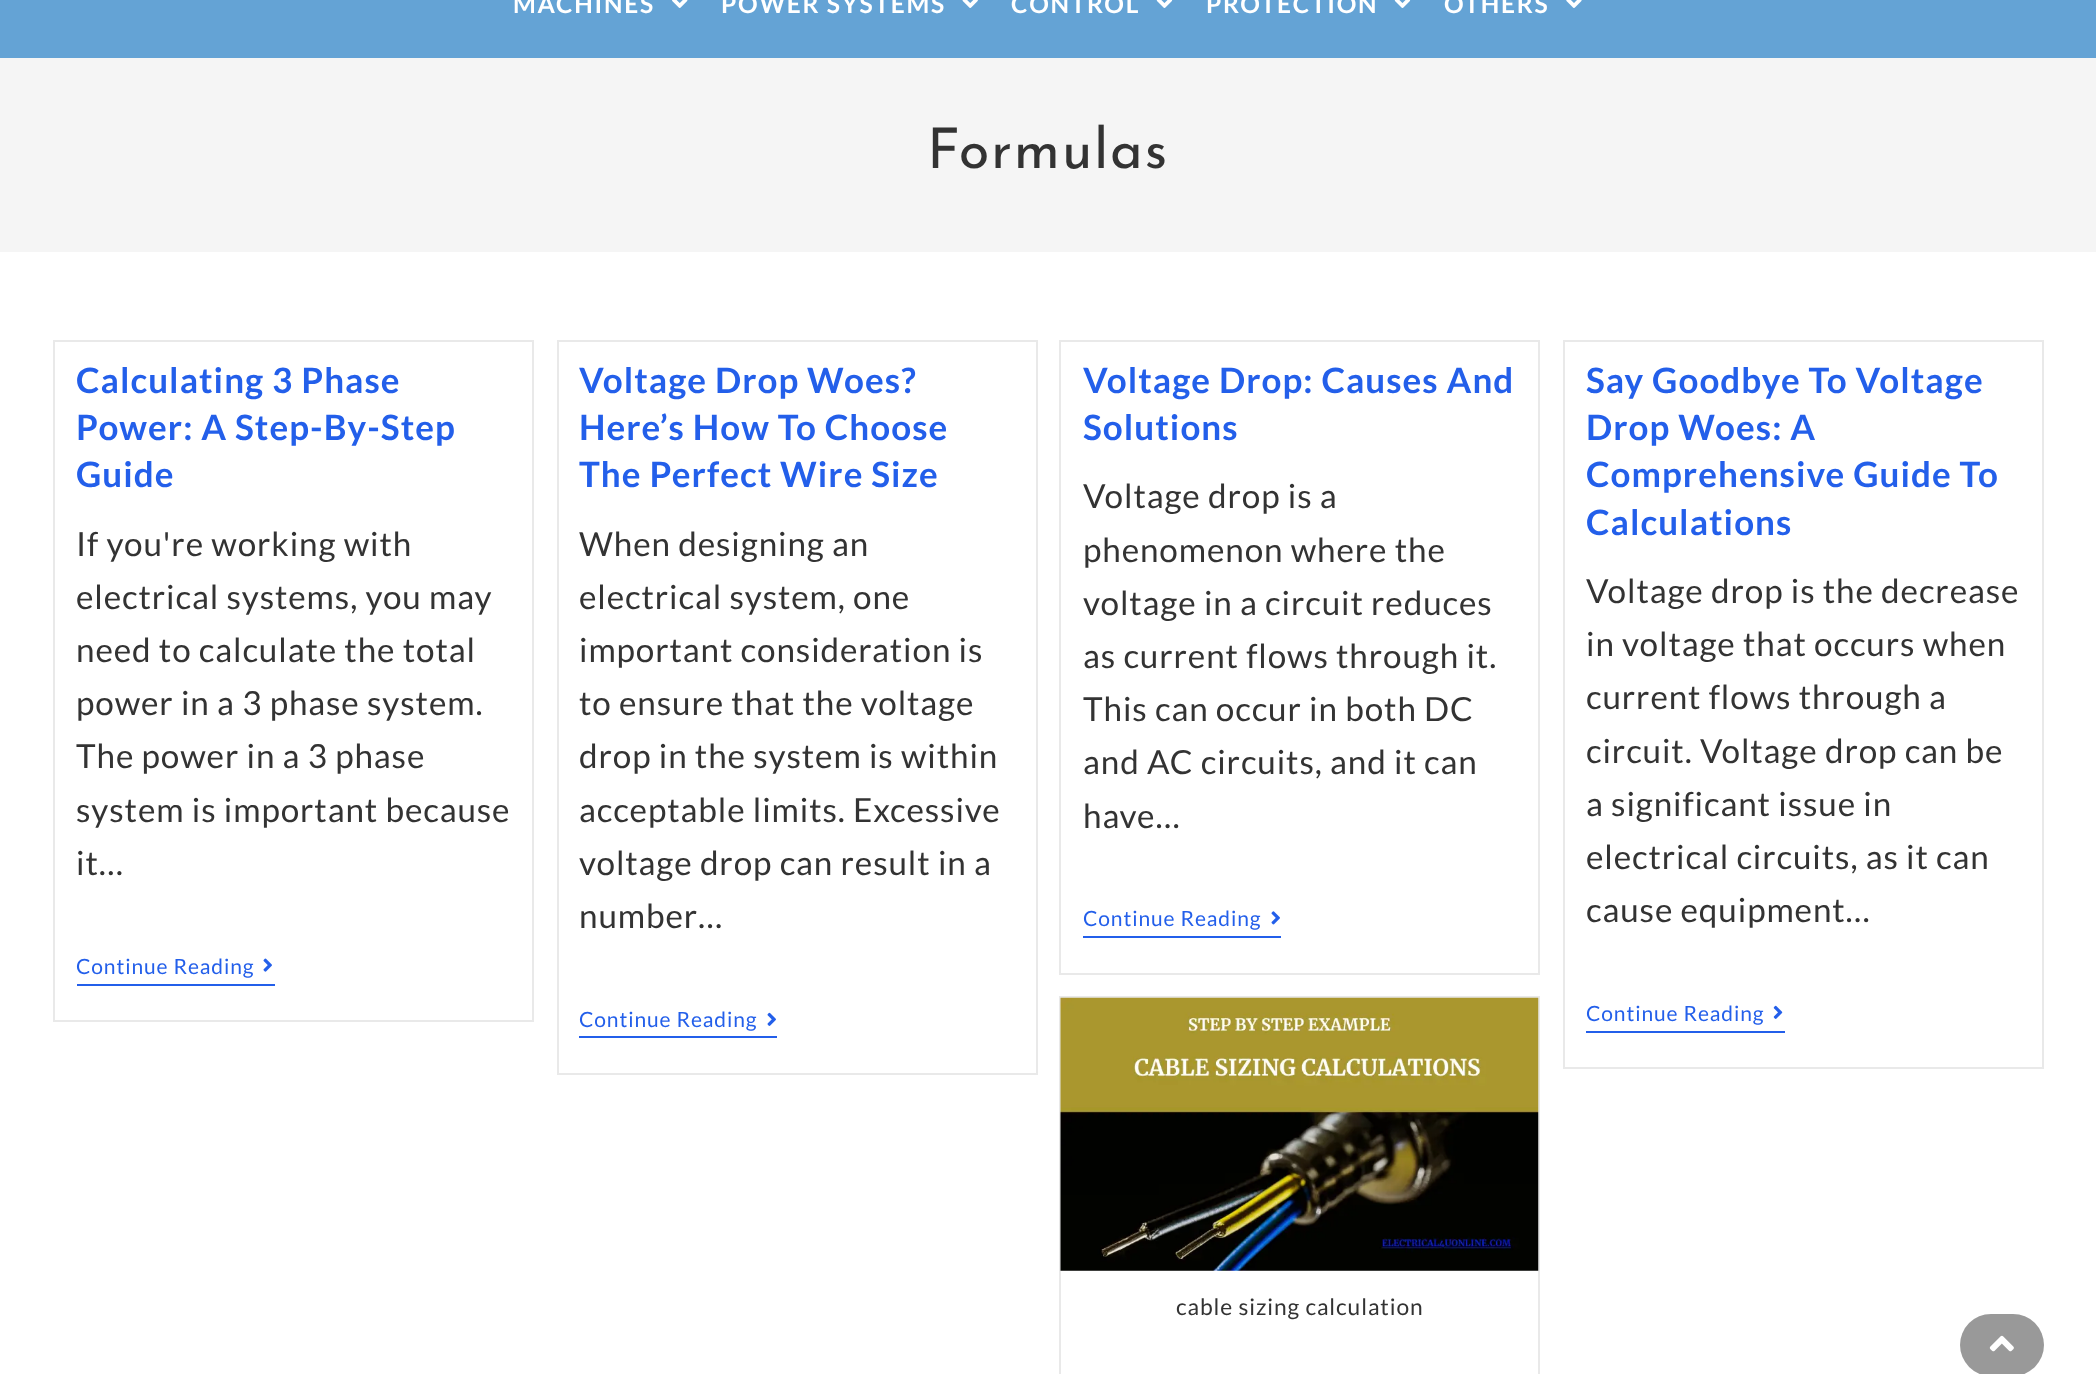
<svg xmlns="http://www.w3.org/2000/svg" width="2096" height="1374" viewBox="0 0 2096 1374">
  <rect width="100%" height="100%" fill="#fff"/>
  <path d="M0 0h2096v58H0z" fill="#64a3d5"/>
  <image x="672" y="0" width="16" height="8" href="img/1.png"/>
  <image x="962" y="0" width="16" height="8" href="img/2.png"/>
  <image x="1156" y="0" width="17" height="8" href="img/3.png"/>
  <image x="1394" y="0" width="17" height="8" href="img/3.png"/>
  <image x="1566" y="0" width="16" height="8" href="img/4.png"/>
  <path d="M0 58h2096v194H0z" fill="#f5f5f5"/>
  <path d="M54 341h479v680H54z" fill="none" stroke="#e9e9e9" stroke-width="2"/>
  <path d="M77 984h198v2H77z" fill="#235fea"/>
  <image x="263" y="958" width="9" height="14" href="img/5.png"/>
  <path d="M558 341h479v733H558z" fill="none" stroke="#e9e9e9" stroke-width="2"/>
  <path d="M579 1036h198v2H579z" fill="#235fea"/>
  <image x="767" y="1012" width="9" height="14" href="img/6.png"/>
  <path d="M1060 341h479v633H1060z" fill="none" stroke="#e9e9e9" stroke-width="2"/>
  <path d="M1083 936h198v2H1083z" fill="#235fea"/>
  <image x="1271" y="911" width="9" height="14" href="img/7.png"/>
  <path d="M1564 341h479v727H1564z" fill="none" stroke="#e9e9e9" stroke-width="2"/>
  <path d="M1586 1031h199v2H1586z" fill="#235fea"/>
  <image x="1773" y="1005" width="10" height="14" href="img/8.png"/>
  <path d="M1060 997h479v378H1060z" fill="none" stroke="#e9e9e9" stroke-width="2"/>
  <image x="1060" y="997" width="479" height="274" href="img/9.png"/>
  <rect x="1960" y="1314" width="84" height="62" rx="31" fill="#999"/>
  <image x="1989" y="1335" width="25" height="17" href="img/10.png"/>
  <g font-family="Lato" font-size="24.5" font-weight="bold" letter-spacing="1.75" fill="#fff">
    <text x="513" y="13">MACHINES</text>
    <text x="721" y="13">POWER SYSTEMS</text>
    <text x="1011" y="13">CONTROL</text>
    <text x="1206" y="13">PROTECTION</text>
    <text x="1444" y="13">OTHERS</text>
  </g>
  <text x="927" y="168" font-family="Josefin Sans" font-size="56" letter-spacing="1.75" fill="#333">Formulas</text>
  <g font-family="Lato" font-size="35" font-weight="bold" letter-spacing="1.05" fill="#235fea">
    <text x="76" y="393">Calculating 3 Phase</text>
    <text x="76" y="440">Power: A Step-By-Step</text>
    <text x="76" y="487">Guide</text>
  </g>
  <g font-family="Lato" font-size="33.25" letter-spacing="0.9" fill="#333">
    <text x="76" y="556">If you're working with</text>
    <text x="76" y="609">electrical systems, you may</text>
    <text x="76" y="662">need to calculate the total</text>
    <text x="76" y="715">power in a 3 phase system.</text>
    <text x="76" y="768">The power in a 3 phase</text>
    <text x="76" y="822">system is important because</text>
    <text x="76" y="875">it…</text>
  </g>
  <text x="76" y="974" font-family="Lato" font-size="21" letter-spacing="0.9" fill="#235fea">Continue Reading</text>
  <g font-family="Lato" font-size="35" font-weight="bold" letter-spacing="1.05" fill="#235fea">
    <text x="579" y="393">Voltage Drop Woes?</text>
    <text x="579" y="440">Here’s How To Choose</text>
    <text x="579" y="487">The Perfect Wire Size</text>
  </g>
  <g font-family="Lato" font-size="33.25" letter-spacing="0.9" fill="#333">
    <text x="579" y="556">When designing an</text>
    <text x="579" y="609">electrical system, one</text>
    <text x="579" y="662">important consideration is</text>
    <text x="579" y="715">to ensure that the voltage</text>
    <text x="579" y="768">drop in the system is within</text>
    <text x="579" y="822">acceptable limits. Excessive</text>
    <text x="579" y="875">voltage drop can result in a</text>
    <text x="579" y="928">number…</text>
  </g>
  <text x="579" y="1027" font-family="Lato" font-size="21" letter-spacing="0.9" fill="#235fea">Continue Reading</text>
  <g font-family="Lato" font-size="35" font-weight="bold" letter-spacing="1.05" fill="#235fea">
    <text x="1083" y="393">Voltage Drop: Causes And</text>
    <text x="1083" y="440">Solutions</text>
  </g>
  <g font-family="Lato" font-size="33.25" letter-spacing="0.9" fill="#333">
    <text x="1083" y="508">Voltage drop is a</text>
    <text x="1083" y="562">phenomenon where the</text>
    <text x="1083" y="615">voltage in a circuit reduces</text>
    <text x="1083" y="668">as current flows through it.</text>
    <text x="1083" y="721">This can occur in both DC</text>
    <text x="1083" y="774">and AC circuits, and it can</text>
    <text x="1083" y="828">have…</text>
  </g>
  <text x="1083" y="926" font-family="Lato" font-size="21" letter-spacing="0.9" fill="#235fea">Continue Reading</text>
  <g font-family="Lato" font-size="35" font-weight="bold" letter-spacing="1.05" fill="#235fea">
    <text x="1586" y="393">Say Goodbye To Voltage</text>
    <text x="1586" y="440">Drop Woes: A</text>
    <text x="1586" y="487">Comprehensive Guide To</text>
    <text x="1586" y="535">Calculations</text>
  </g>
  <g font-family="Lato" font-size="33.25" letter-spacing="0.9" fill="#333">
    <text x="1586" y="603">Voltage drop is the decrease</text>
    <text x="1586" y="656">in voltage that occurs when</text>
    <text x="1586" y="709">current flows through a</text>
    <text x="1586" y="763">circuit. Voltage drop can be</text>
    <text x="1586" y="816">a significant issue in</text>
    <text x="1586" y="869">electrical circuits, as it can</text>
    <text x="1586" y="922">cause equipment…</text>
  </g>
  <text x="1586" y="1021" font-family="Lato" font-size="21" letter-spacing="0.9" fill="#235fea">Continue Reading</text>
  <text x="1176" y="1315" font-family="Lato" font-size="22.75" letter-spacing="0.9" fill="#333">cable sizing calculation</text>
</svg>
